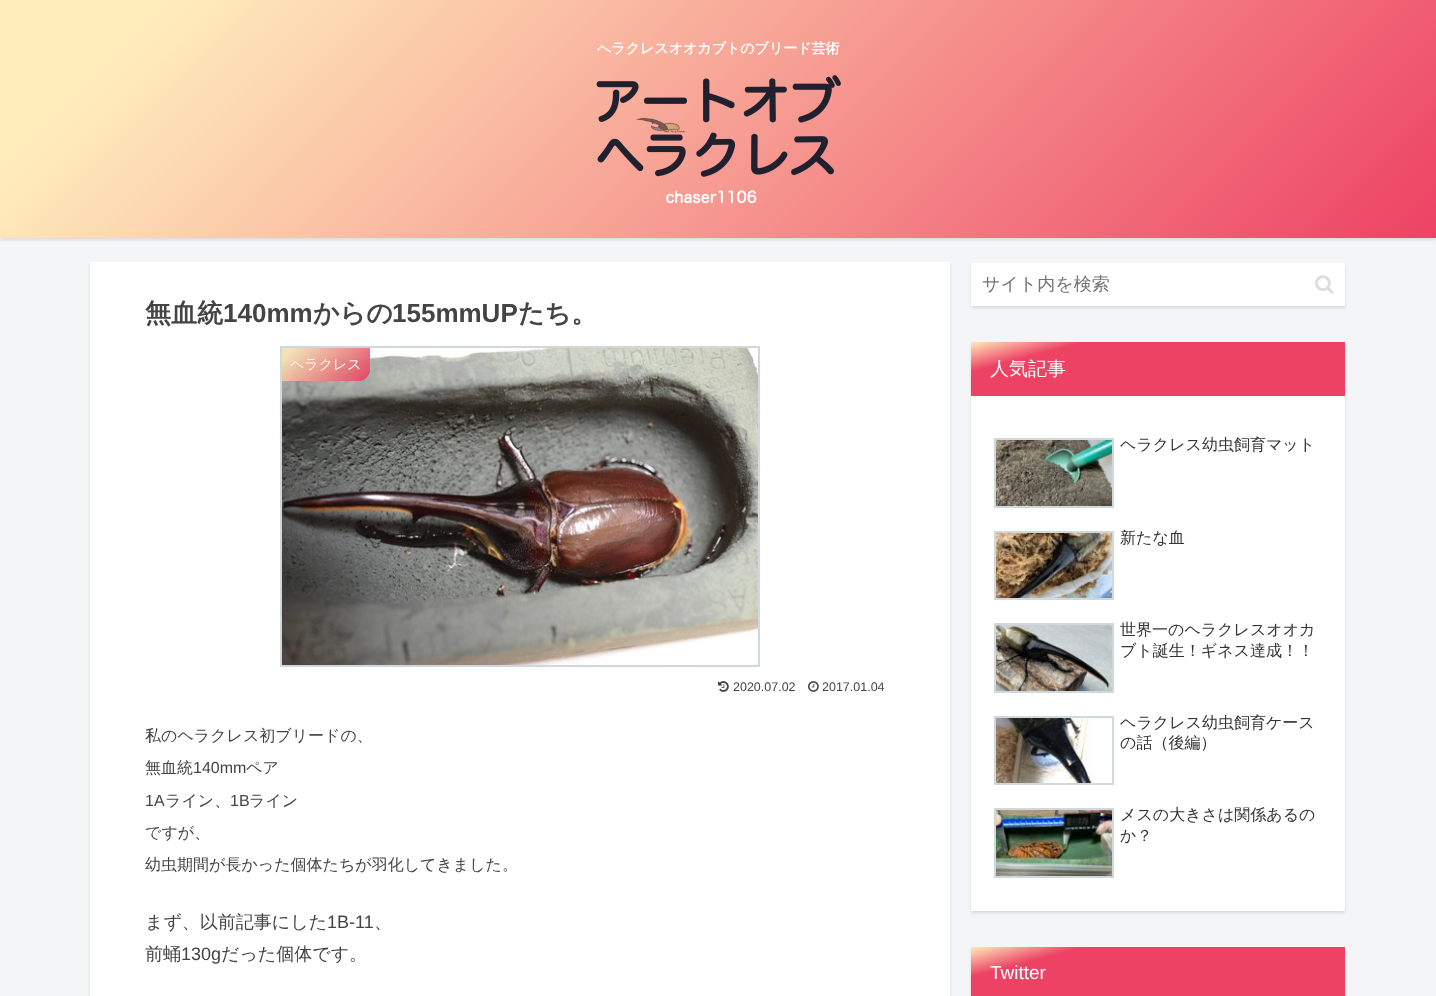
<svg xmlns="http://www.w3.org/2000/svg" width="1436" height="996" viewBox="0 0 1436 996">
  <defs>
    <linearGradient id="g1" gradientUnits="userSpaceOnUse" x1="299" y1="-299" x2="1137" y2="538"><stop offset="0.1" stop-color="#ffedbc"/><stop offset="1" stop-color="#ed4264"/></linearGradient>
    <linearGradient id="g2" gradientUnits="userSpaceOnUse" x1="296" y1="334" x2="356" y2="395"><stop offset="0.1" stop-color="#ffedbc" stop-opacity="0.9"/><stop offset="1" stop-color="#ed4264" stop-opacity="0.9"/></linearGradient>
    <linearGradient id="g3" gradientUnits="userSpaceOnUse" x1="1139" y1="297" x2="1177" y2="441"><stop offset="0" stop-color="#ffedbc"/><stop offset="0.2" stop-color="#ed4264"/></linearGradient>
    <linearGradient id="g4" gradientUnits="userSpaceOnUse" x1="1139" y1="902" x2="1177" y2="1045"><stop offset="0" stop-color="#ffedbc"/><stop offset="0.2" stop-color="#ed4264"/></linearGradient>
  </defs>
  <rect width="100%" height="100%" fill="#f4f5f7"/>
  <path d="M0 2h1436v238H0z" fill="#0000001a" filter="blur(1.5px)"/>
  <path d="M0 0h1436v238H0z" fill="url(#g1)"/>
  <image x="596" y="75" width="245" height="129" href="img/1.png"/>
  <path d="M90 264h860v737H90z" fill="#0000001a" filter="blur(1.5px)"/>
  <path d="M90 262h860v734H90z" fill="#fff"/>
  <path d="M281 347h478v319H281z" fill="none" stroke="#cfd8dc" stroke-width="2"/>
  <image x="282" y="348" width="476" height="317" href="img/2.png"/>
  <path d="M282 348H370V369C370 375.5 364.5 381 358 381H282Z" fill="#333333a1"/>
  <path d="M282 348H370V369C370 375.5 364.5 381 358 381H282Z" fill="url(#g2)"/>
  <image x="718" y="681" width="11" height="11" href="img/3.png"/>
  <image x="808" y="681" width="11" height="11" href="img/4.png"/>
  <path d="M971 265h374v43H971z" fill="#0000001a" filter="blur(1.5px)"/>
  <path d="M971 263h374v43H971z" fill="#fff"/>
  <image x="1315" y="275" width="19" height="19" href="img/5.png"/>
  <path d="M971 344h374v569H971z" fill="#0000001a" filter="blur(1.5px)"/>
  <path d="M971 396h374v515H971z" fill="#fff"/>
  <path d="M971 342h374v54H971z" fill="url(#g3)"/>
  <path d="M995 439h118v68H995z" fill="none" stroke="#cfd8dc" stroke-width="2"/>
  <image x="996" y="440" width="116" height="66" href="img/6.png"/>
  <path d="M995 532h118v67H995z" fill="none" stroke="#cfd8dc" stroke-width="2"/>
  <image x="996" y="533" width="116" height="65" href="img/7.png"/>
  <path d="M995 624h118v68H995z" fill="none" stroke="#cfd8dc" stroke-width="2"/>
  <image x="996" y="625" width="116" height="66" href="img/8.png"/>
  <path d="M995 717h118v67H995z" fill="none" stroke="#cfd8dc" stroke-width="2"/>
  <image x="996" y="718" width="97" height="65" href="img/9.png"/>
  <path d="M995 809h118v68H995z" fill="none" stroke="#cfd8dc" stroke-width="2"/>
  <image x="996" y="810" width="116" height="66" href="img/10.png"/>
  <path d="M971 949h374v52H971z" fill="#0000001a" filter="blur(1.5px)"/>
  <path d="M971 947h374v49H971z" fill="url(#g4)"/>
  <text x="597" y="53" font-family="WenQuanYi Zen Hei" font-size="14" font-weight="bold" fill="#fff">へラクレスオオカブトのブリード芸術</text>
  <text x="145" y="322" font-family="WenQuanYi Zen Hei" font-size="26" font-weight="bold" fill="#444">無血統</text>
  <text x="223" y="322" font-family="Liberation Sans" font-size="26" font-weight="bold" fill="#444">140mm</text>
  <text x="313" y="322" font-family="WenQuanYi Zen Hei" font-size="26" font-weight="bold" fill="#444">からの</text>
  <text x="392" y="322" font-family="Liberation Sans" font-size="26" font-weight="bold" fill="#444">155mmUP</text>
  <text x="518" y="322" font-family="WenQuanYi Zen Hei" font-size="26" font-weight="bold" fill="#444">たち。</text>
  <text x="290" y="369" font-family="WenQuanYi Zen Hei" font-size="14" font-weight="500" fill="#fdf5f4">ヘラクレス</text>
  <g font-family="Liberation Sans" font-size="12.5" fill="#444">
    <text x="733" y="691">2020.07.02</text>
    <text x="822" y="691">2017.01.04</text>
  </g>
  <g font-family="WenQuanYi Zen Hei" font-size="16" font-weight="500" fill="#444">
    <text x="145" y="741">私のヘラクレス初ブリードの、</text>
    <text x="145" y="773">無血統</text>
  </g>
  <text x="193" y="773" font-family="Liberation Sans" font-size="16" fill="#444">140mm</text>
  <text x="246" y="773" font-family="WenQuanYi Zen Hei" font-size="16" font-weight="500" fill="#444">ペア</text>
  <text x="145" y="806" font-family="Liberation Sans" font-size="16" fill="#444">1A</text>
  <text x="165" y="806" font-family="WenQuanYi Zen Hei" font-size="16" font-weight="500" fill="#444">ライン、</text>
  <text x="230" y="806" font-family="Liberation Sans" font-size="16" fill="#444">1B</text>
  <g font-family="WenQuanYi Zen Hei" font-size="16" font-weight="500" fill="#444">
    <text x="249" y="806">ライン</text>
    <text x="145" y="838">ですが、</text>
    <text x="145" y="870">幼虫期間が長かった個体たちが羽化してきました。</text>
  </g>
  <text x="145" y="928" font-family="WenQuanYi Zen Hei" font-size="18" font-weight="500" fill="#444">まず、以前記事にした</text>
  <text x="327" y="928" font-family="Liberation Sans" font-size="18" fill="#444">1B-11</text>
  <g font-family="WenQuanYi Zen Hei" font-size="18" font-weight="500" fill="#444">
    <text x="374" y="928">、</text>
    <text x="145" y="960">前蛹</text>
  </g>
  <text x="181" y="960" font-family="Liberation Sans" font-size="18" fill="#444">130g</text>
  <text x="221" y="960" font-family="WenQuanYi Zen Hei" font-size="18" font-weight="500" fill="#444">だった個体です。</text>
  <text x="982" y="290" font-family="WenQuanYi Zen Hei" font-size="18" font-weight="500" fill="#757575">サイト内を検索</text>
  <text x="990" y="375" font-family="WenQuanYi Zen Hei" font-size="19" font-weight="500" fill="#fff">人気記事</text>
  <g font-family="WenQuanYi Zen Hei" font-size="16" font-weight="500" fill="#333">
    <text x="1120" y="450">ヘラクレス幼虫飼育マット</text>
    <text x="1120" y="543">新たな血</text>
    <text x="1120" y="635">世界一のヘラクレスオオカ</text>
    <text x="1120" y="656">ブト誕生！ギネス達成！！</text>
    <text x="1120" y="728">ヘラクレス幼虫飼育ケース</text>
    <text x="1120" y="748">の話（後編）</text>
    <text x="1120" y="820">メスの大きさは関係あるの</text>
    <text x="1120" y="841">か？</text>
  </g>
  <text x="990" y="979" font-family="Liberation Sans" font-size="19" fill="#fff">Twitter</text>
</svg>
